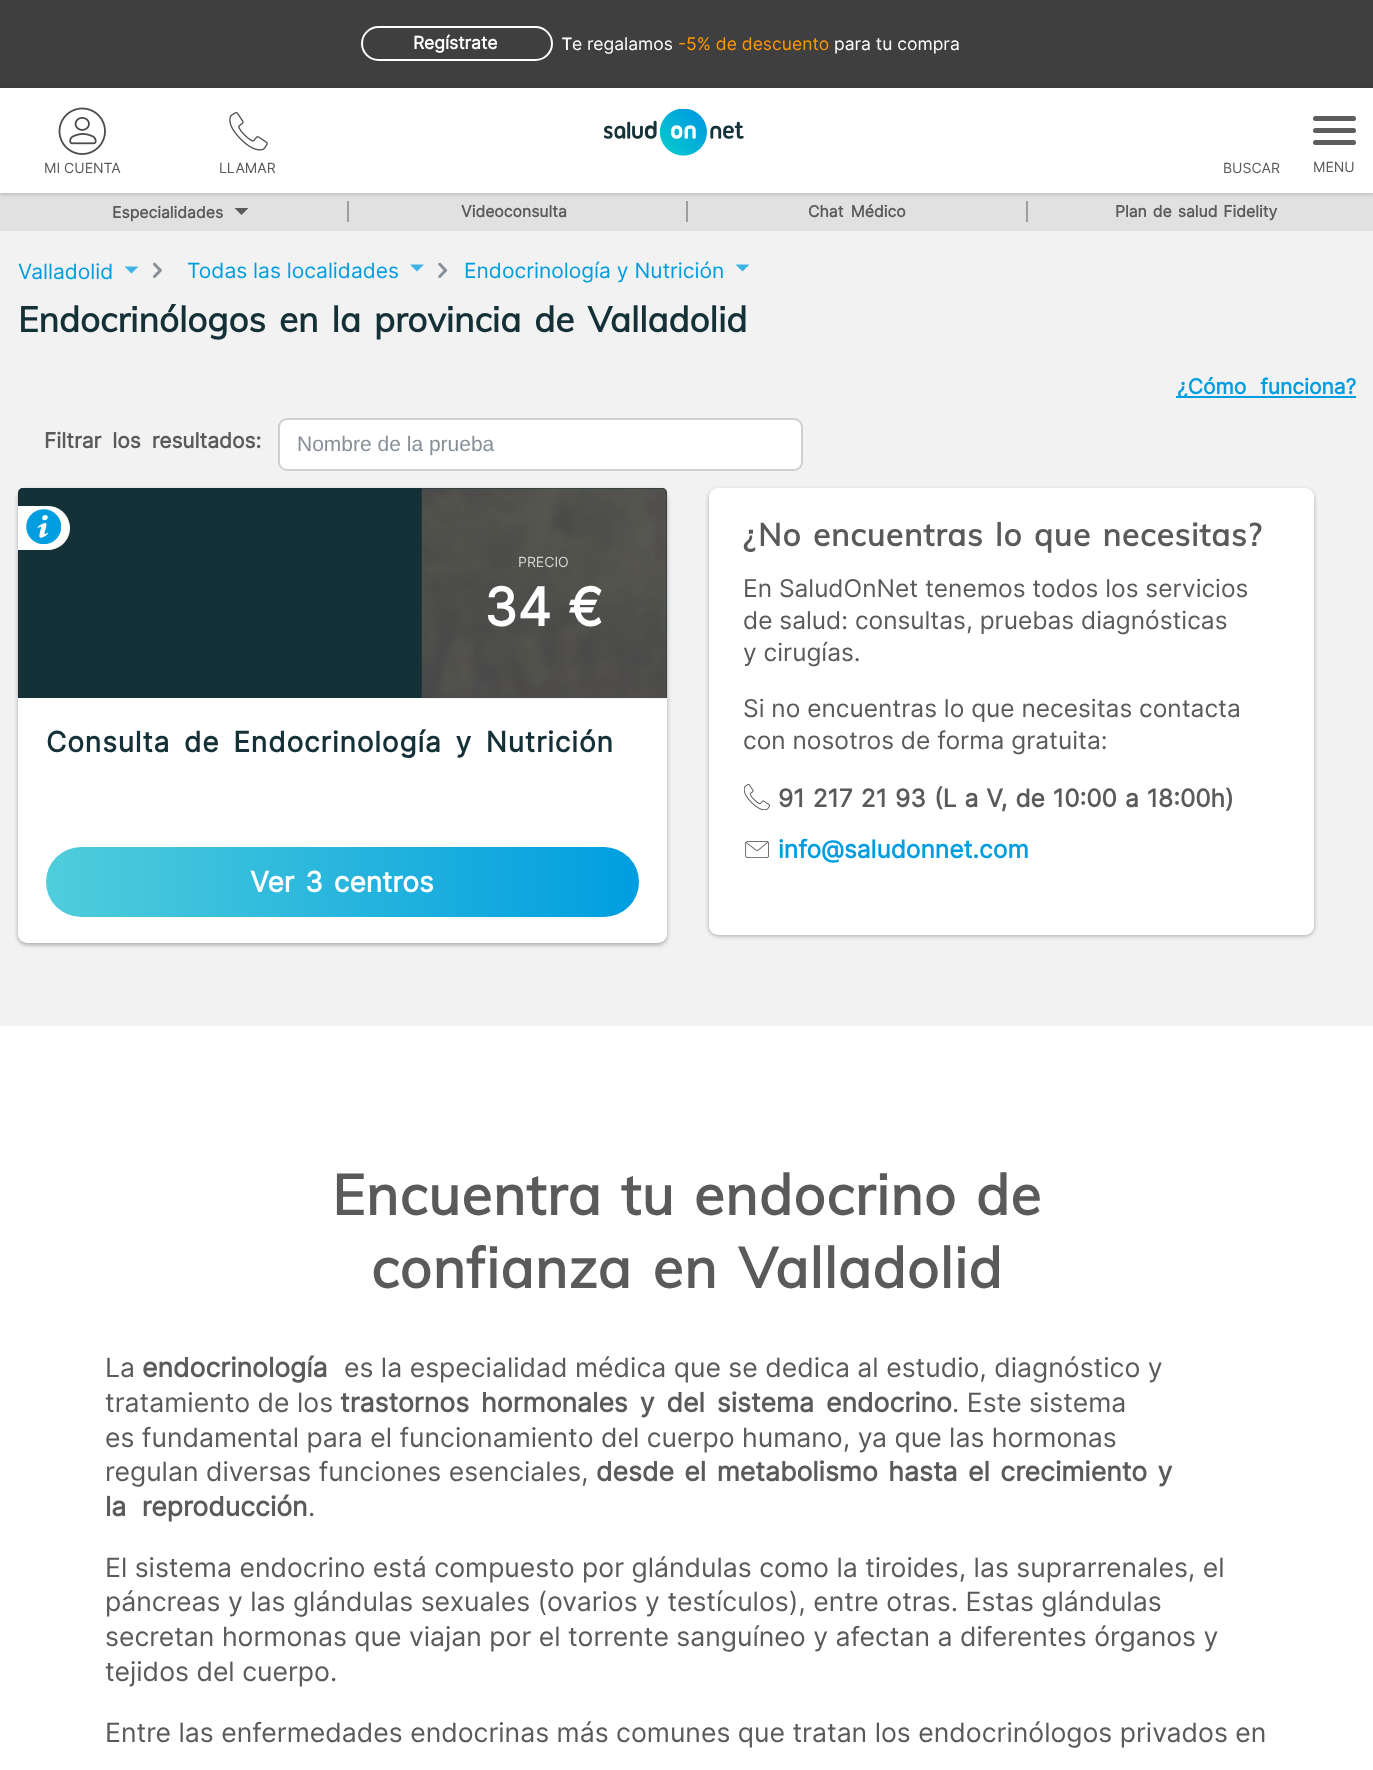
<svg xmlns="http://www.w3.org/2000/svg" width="1373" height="1770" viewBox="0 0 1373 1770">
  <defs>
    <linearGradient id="g1" gradientUnits="userSpaceOnUse" x1="46" y1="882" x2="639" y2="882"><stop offset="0" stop-color="#50cddb"/><stop offset="1" stop-color="#009ee0"/></linearGradient>
  </defs>
  <rect width="100%" height="100%" fill="#3f3f3f"/>
  <rect x="362" y="27" width="190" height="33" rx="16.5" fill="none" stroke="#fff" stroke-width="2"/>
  <path d="M0 193h1373v38H0z" fill="#e1e1e1"/>
  <path d="M0 89h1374v105H0z" fill="#00000033" filter="blur(2px)"/>
  <path d="M0 88h1373v105H0z" fill="#fff"/>
  <image x="604" y="109" width="140" height="47" href="img/1.png"/>
  <image x="58" y="107" width="48" height="48" href="img/2.png"/>
  <image x="229" y="112" width="39" height="39" href="img/3.png"/>
  <rect x="1313" y="116" width="43" height="5" rx="2.5" fill="#5d5d5d"/>
  <rect x="1313" y="128" width="43" height="5" rx="2.5" fill="#5d5d5d"/>
  <rect x="1313" y="140" width="43" height="5" rx="2.5" fill="#5d5d5d"/>
  <path d="M0 231h1373v795H0z" fill="#f2f2f2"/>
  <path d="M347 201h2v21H347z" fill="#9e9e9e"/>
  <path d="M234.5 208H248.5L241.5 215Z" fill="#5a5a5a"/>
  <path d="M686 201h2v21H686z" fill="#9e9e9e"/>
  <path d="M1026 201h2v21H1026z" fill="#9e9e9e"/>
  <path d="M124.5 266.5H138.5L131.5 273.5Z" fill="#3db3e5" fill-rule="evenodd"/>
  <image x="153" y="262" width="9" height="16" href="img/4.png"/>
  <path d="M423.5 264.5H410L417 271.5L423.5 265Z" fill="#3db3e5"/>
  <image x="438" y="262" width="10" height="16" href="img/5.png"/>
  <path d="M749 264.5H735.5L742.5 271.5L749 265Z" fill="#3db3e5"/>
  <path d="M1176 396h180v2H1176z" fill="#009de0"/>
  <rect x="278" y="418" width="525" height="53" rx="9" fill="#fff"/>
  <rect x="279" y="419" width="523" height="51" rx="8" fill="none" stroke="#3f3f3f40" stroke-width="2"/>
  <rect x="18" y="490" width="649" height="455" rx="9" fill="#0000004d" filter="blur(2px)"/>
  <rect x="18" y="488" width="649" height="455" rx="9" fill="#fff"/>
  <path d="M23 488H662C665 488 667 490 667 493V698H18V493C18 490 20 488 23 488Z" fill="#153138"/>
  <path d="M18 506H48C60 506 70 516 70 528C70 540 60 550 48 550H18Z" fill="#fff"/>
  <image x="26" y="509" width="35" height="35" href="img/6.png"/>
  <image x="421" y="488" width="246" height="211" href="img/7.png"/>
  <rect x="46" y="847" width="593" height="70" rx="35" fill="url(#g1)"/>
  <rect x="709" y="490" width="605" height="446" rx="9" fill="#0000004d" filter="blur(2px)"/>
  <rect x="709" y="488" width="605" height="447" rx="9" fill="#fff"/>
  <image x="744" y="784" width="26" height="26" href="img/8.png"/>
  <image x="745" y="841" width="25" height="17" href="img/9.png"/>
  <path d="M0 1026h1373v744H0z" fill="#fff"/>
  <text x="413" y="49" font-family="Inter" font-size="17.5" font-weight="bold" fill="#fff">Regístrate</text>
  <text x="562" y="50" font-family="Noto Sans" font-size="17.5" font-weight="500" fill="#fff">T</text>
  <text x="572" y="50" font-family="Inter" font-size="17.5" fill="#fff">e regalamos</text>
  <text x="678" y="50" font-family="Inter" font-size="17.5" fill="#ff9800">-5% de descuento</text>
  <text x="834" y="50" font-family="Inter" font-size="17.5" fill="#fff">para tu compra</text>
  <g font-family="Inter" font-size="14" fill="#5a5a5a">
    <text x="44" y="173">MI CUENTA</text>
    <text x="219" y="173">LLAMAR</text>
    <text x="1223" y="173">BUSCAR</text>
    <text x="1313" y="172">MENU</text>
  </g>
  <g font-family="Inter" font-size="15.75" font-weight="bold" fill="#5a5a5a">
    <text x="112" y="218">Especialidades</text>
    <text x="461" y="217">Videoconsulta</text>
    <text x="808" y="217" word-spacing="3">Chat Médico</text>
    <text x="1115" y="217" word-spacing="1.5">Plan de salud Fidelity</text>
  </g>
  <g font-family="Inter" font-size="21" fill="#009de0">
    <text x="18" y="279">Valladolid</text>
    <text x="187" y="278">Todas las localidades</text>
    <text x="464" y="278">Endocrinología y Nutrición</text>
  </g>
  <text x="18" y="332" word-spacing="4" font-family="Mulish" font-size="35" font-weight="bold" fill="#153138">Endocrinólogos en la provincia de Valladolid</text>
  <text x="1177" y="394" word-spacing="8" font-family="Inter" font-size="21" font-weight="bold" fill="#009de0">¿Cómo funciona?</text>
  <text x="44" y="448" word-spacing="5" font-family="Inter" font-size="21" font-weight="bold" fill="#5a5a5a">Filtrar los resultados:</text>
  <text x="297" y="451" font-family="Liberation Sans" font-size="21" fill="#879099">Nombre de la prueba</text>
  <text x="518" y="567" font-family="Inter" font-size="14" fill="#d3d3d2">PRECIO</text>
  <text x="484" y="626" word-spacing="2" font-family="Inter" font-size="52.5" font-weight="bold" fill="#fff">34 €</text>
  <text x="46" y="752" word-spacing="5" font-family="Inter" font-size="28" font-weight="bold" letter-spacing="0.9" fill="#153138">Consulta de Endocrinología y Nutrición</text>
  <text x="250" y="892" word-spacing="3" font-family="Inter" font-size="28" font-weight="bold" fill="#fff">Ver 3 centros</text>
  <text x="743" y="546" word-spacing="2.5" font-family="Mulish" font-size="31.5" font-weight="bold" letter-spacing="0.9" fill="#5a5a5a">¿No encuentras lo que necesitas?</text>
  <g font-family="Inter" font-size="24.5" fill="#5a5a5a">
    <text x="743" y="597">En SaludOnNet tenemos todos los servicios</text>
    <text x="743" y="629">de salud: consultas, pruebas diagnósticas</text>
    <text x="743" y="661">y cirugías.</text>
    <text x="743" y="717">Si no encuentras lo que necesitas contacta</text>
    <text x="743" y="749">con nosotros de forma gratuita:</text>
  </g>
  <text x="778" y="807" word-spacing="1.1" font-family="Inter" font-size="24.5" font-weight="bold" fill="#5a5a5a">91 217 21 93 (L a V, de 10:00 a 18:00h)</text>
  <text x="778" y="858" font-family="Inter" font-size="24.5" font-weight="bold" fill="#009de0">info@saludonnet.com</text>
  <g font-family="Mulish" font-size="56" font-weight="bold" letter-spacing="0.9" fill="#5a5a5a">
    <text x="332" y="1215" word-spacing="3.5">Encuentra tu endocrino de</text>
    <text x="371" y="1288" word-spacing="5">confianza en Valladolid</text>
  </g>
  <text x="105" y="1377" font-family="Inter" font-size="26.6" fill="#5a5a5a">La</text>
  <text x="142" y="1377" font-family="Inter" font-size="26.6" font-weight="bold" fill="#5a5a5a">endocrinología</text>
  <g font-family="Inter" font-size="26.6" fill="#5a5a5a">
    <text x="344" y="1377">es la especialidad médica que se dedica al estudio, diagnóstico y</text>
    <text x="105" y="1412">tratamiento de los</text>
  </g>
  <text x="340" y="1412" word-spacing="4.5" font-family="Inter" font-size="26.6" font-weight="bold" fill="#5a5a5a">trastornos hormonales y del sistema endocrino</text>
  <g font-family="Inter" font-size="26.6" fill="#5a5a5a">
    <text x="952" y="1412">. Este sistema</text>
    <text x="105" y="1447">es fundamental para el funcionamiento del cuerpo humano, ya que las hormonas</text>
    <text x="105" y="1481">regulan diversas funciones esenciales,</text>
  </g>
  <g font-family="Inter" font-size="26.6" font-weight="bold" fill="#5a5a5a">
    <text x="596" y="1481" word-spacing="3">desde el metabolismo hasta el crecimiento y</text>
    <text x="105" y="1516" word-spacing="8">la reproducción</text>
  </g>
  <g font-family="Inter" font-size="26.6" fill="#5a5a5a">
    <text x="308" y="1516">.</text>
    <text x="105" y="1577">El sistema endocrino está compuesto por glándulas como la tiroides, las suprarrenales, el</text>
    <text x="105" y="1611">páncreas y las glándulas sexuales (ovarios y testículos), entre otras. Estas glándulas</text>
    <text x="105" y="1646">secretan hormonas que viajan por el torrente sanguíneo y afectan a diferentes órganos y</text>
    <text x="105" y="1681">tejidos del cuerpo.</text>
    <text x="105" y="1742">Entre las enfermedades endocrinas más comunes que tratan los endocrinólogos privados en</text>
  </g>
</svg>
